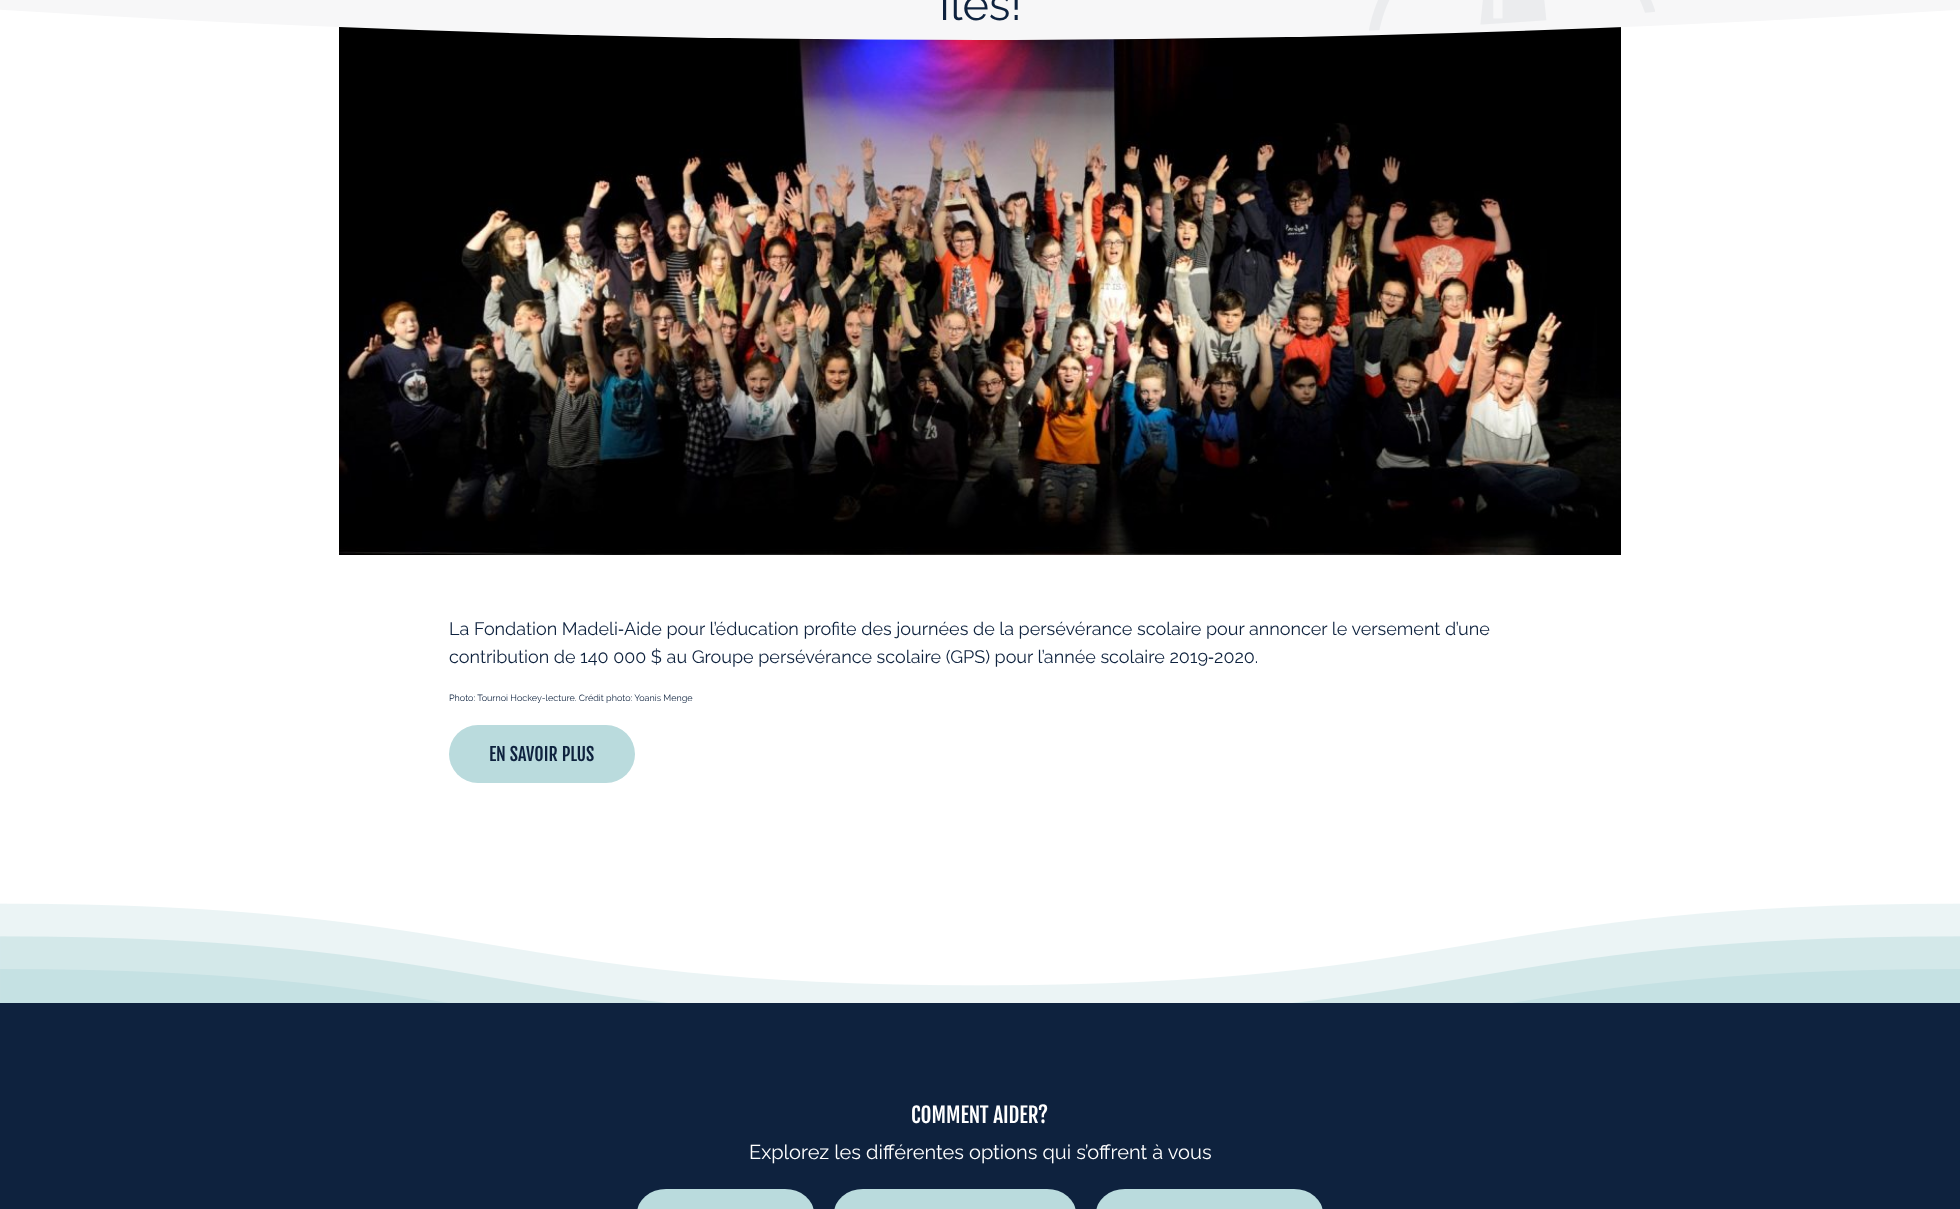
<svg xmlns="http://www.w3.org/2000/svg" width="1960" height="1209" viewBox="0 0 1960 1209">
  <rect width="100%" height="100%" fill="#fff"/>
  <image x="339" y="14" width="1282" height="541" href="img/2.png"/>
  <rect x="-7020" y="-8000" width="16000" height="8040" rx="8000" fill="#f7f7f8"/>
  <image x="1369" y="0" width="286" height="31" href="img/1.png"/>
  <rect x="449" y="725" width="186" height="58" rx="29" fill="#badbdd"/>
  <image x="0" y="903" width="1960" height="100" href="img/3.png"/>
  <path d="M0 1003h1960v206H0z" fill="#0e223e"/>
  <rect x="637" y="1189" width="177" height="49" rx="29" fill="#badbdd"/>
  <rect x="834" y="1189" width="242" height="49" rx="29" fill="#badbdd"/>
  <rect x="1096" y="1189" width="227" height="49" rx="29" fill="#badbdd"/>
  <text x="939" y="20" font-family="Raleway" font-size="45" fill="#0e223e">Îles!</text>
  <text x="449" y="635" font-family="Raleway" font-size="18" fill="#0e223e">La Fondation Madeli</text>
  <text x="618" y="635" font-family="Liberation Sans" font-size="18" fill="#0e223e">‐</text>
  <g font-family="Raleway" font-size="18" fill="#0e223e">
    <text x="624" y="635">Aide pour l’éducation profite des journées de la persévérance scolaire pour annoncer le versement d’une</text>
    <text x="449" y="663">contribution de 140 000 $ au Groupe persévérance scolaire (GPS) pour l’année scolaire 2019</text>
  </g>
  <text x="1208" y="663" font-family="Liberation Sans" font-size="18" fill="#0e223e">‐</text>
  <text x="1214" y="663" font-family="Raleway" font-size="18" fill="#0e223e">2020.</text>
  <text x="449" y="701" font-family="Raleway" font-size="9" fill="#0e223e">Photo: Tournoi Hockey-lecture. Crédit photo: Yoanis Menge</text>
  <text x="489" y="761" font-family="Fjalla One" font-size="18" fill="#0e223e">EN SAVOIR PLUS</text>
  <text x="911" y="1123" font-family="Fjalla One" font-size="21" fill="#fff">COMMENT AIDER?</text>
  <text x="749" y="1159" font-family="Raleway" font-size="20" fill="#fff">Explorez les différentes options qui s’offrent à vous</text>
</svg>
